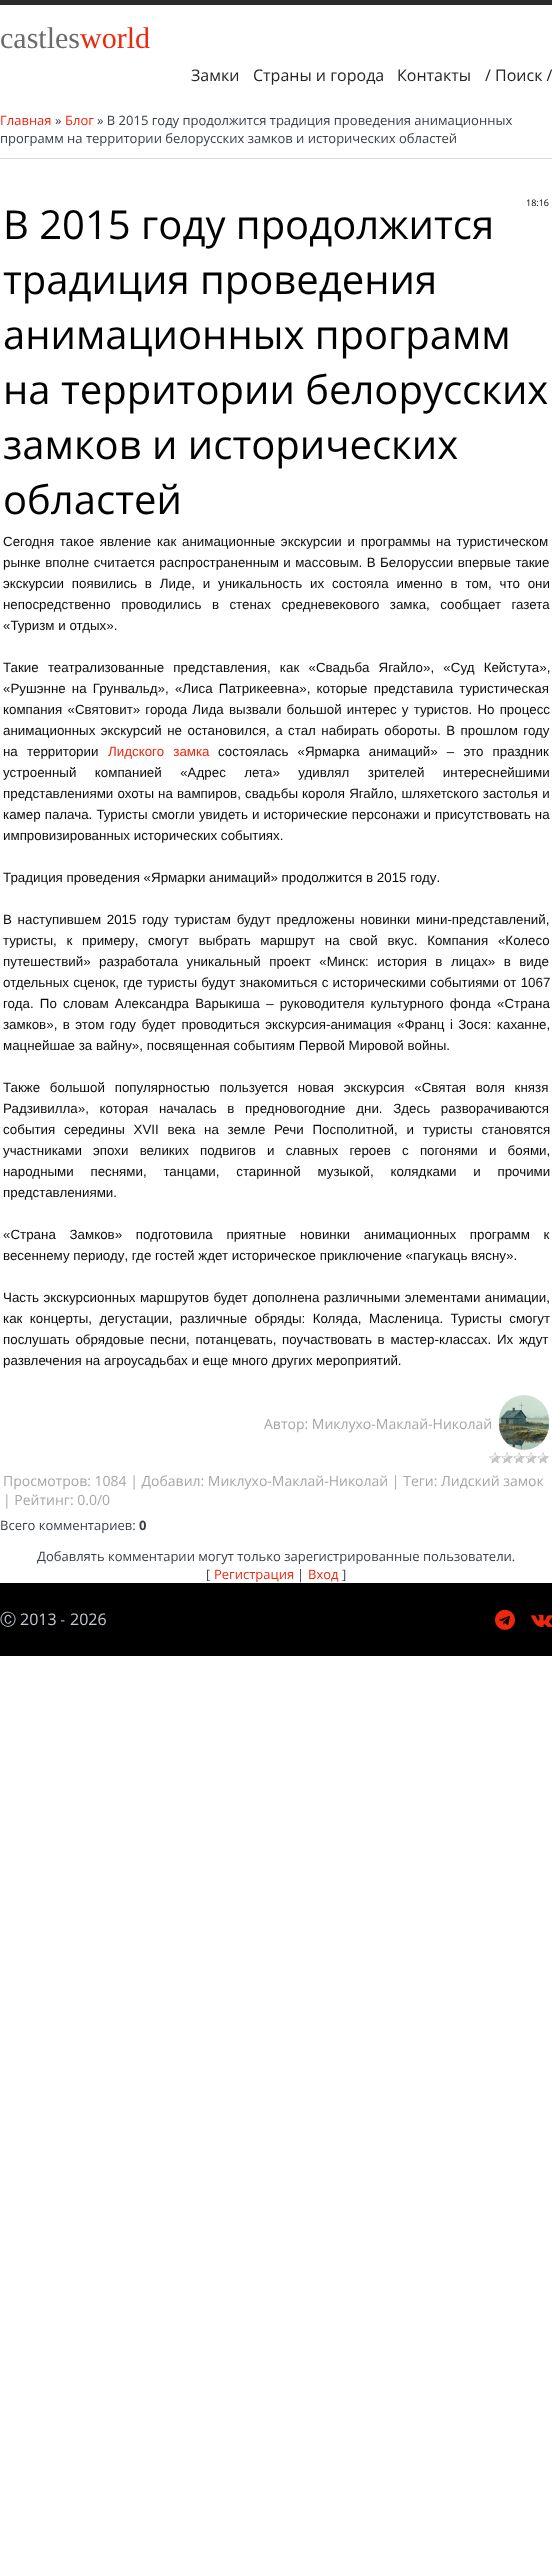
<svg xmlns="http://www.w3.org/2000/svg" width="552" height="2569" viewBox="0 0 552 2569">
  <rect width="100%" height="100%" fill="#fff"/>
  <path d="M0 0h552v5H0z" fill="#2a2c2e"/>
  <path d="M0 158h552v1H0z" fill="#d8d8d8"/>
  <image x="499" y="1395" width="50" height="55" href="img/1.png"/>
  <image x="489" y="1452" width="60" height="12" href="img/2.png"/>
  <path d="M0 1583h552v73H0z" fill="#000"/>
  <image x="495" y="1609" width="20" height="21" href="img/3.png"/>
  <image x="531" y="1614" width="21" height="13" href="img/4.png"/>
  <text x="0" y="48" font-family="Liberation Serif" font-size="30" fill="#6b6b6b">castles</text>
  <text x="80" y="48" font-family="Liberation Serif" font-size="30" fill="#ed270e">world</text>
  <g font-family="Open Sans" font-size="16" fill="#242424">
    <text x="191" y="81">Замки</text>
    <text x="253" y="81">Страны и города</text>
    <text x="397" y="81">Контакты</text>
    <text x="485" y="81">/ Поиск /</text>
  </g>
  <text x="0" y="125" font-family="Open Sans" font-size="13" fill="#ed270e">Главная</text>
  <text x="55" y="125" font-family="Open Sans" font-size="13" fill="#383e47">»</text>
  <text x="65" y="125" font-family="Open Sans" font-size="13" fill="#ed270e">Блог</text>
  <g font-family="Open Sans" font-size="13" fill="#383e47">
    <text x="97" y="125">» В 2015 году продолжится традиция проведения анимационных</text>
    <text x="0" y="143">программ на территории белорусских замков и исторических областей</text>
  </g>
  <text x="526" y="206" font-family="Open Sans" font-size="9" fill="#000">18:16</text>
  <g font-family="Open Sans" font-size="40" fill="#000">
    <text x="3" y="239">В 2015 году продолжится</text>
    <text x="3" y="294">традиция проведения</text>
    <text x="3" y="349">анимационных программ</text>
    <text x="3" y="404">на территории белорусских</text>
    <text x="3" y="459">замков и исторических</text>
    <text x="3" y="514">областей</text>
  </g>
  <g font-family="Arimo" font-size="13.35" fill="#0a0a0a">
    <text x="3" y="546" word-spacing="2">Сегодня такое явление как анимационные экскурсии и программы на туристическом</text>
    <text x="3" y="567" word-spacing="0.75">рынке вполне считается распространенным и массовым. В Белоруссии впервые такие</text>
    <text x="3" y="588" word-spacing="4.1">экскурсии появились в Лиде, и уникальность их состояла именно в том, что они</text>
    <text x="3" y="609" word-spacing="6.75">непосредственно проводились в стенах средневекового замка, сообщает газета</text>
    <text x="3" y="630">«Туризм и отдых».</text>
    <text x="3" y="672" word-spacing="5.5">Такие театрализованные представления, как «Свадьба Ягайло», «Суд Кейстута»,</text>
    <text x="3" y="693" word-spacing="2.5">«Рушэнне на Грунвальд», «Лиса Патрикеевна», которые представила туристическая</text>
    <text x="3" y="714" word-spacing="1.5">компания «Святовит» города Лида вызвали большой интерес у туристов. Но процесс</text>
    <text x="3" y="735" word-spacing="1.75">анимационных экскурсий не остановился, а стал набирать обороты. В прошлом году</text>
    <text x="3" y="756" word-spacing="5.5">на территории</text>
  </g>
  <text x="108" y="756" word-spacing="5.5" font-family="Arimo" font-size="13.35" fill="#ed270e">Лидского замка</text>
  <g font-family="Arimo" font-size="13.35" fill="#0a0a0a">
    <text x="218" y="756" word-spacing="5.5">состоялась «Ярмарка анимаций» – это праздник</text>
    <text x="3" y="777" word-spacing="14.75">устроенный компанией «Адрес лета» удивлял зрителей интереснейшими</text>
    <text x="3" y="798" word-spacing="0.4">представлениями охоты на вампиров, свадьбы короля Ягайло, шляхетского застолья и</text>
    <text x="3" y="819" word-spacing="0.4">камер палача. Туристы смогли увидеть и исторические персонажи и присутствовать на</text>
    <text x="3" y="840">импровизированных исторических событиях.</text>
    <text x="3" y="882">Традиция проведения «Ярмарки анимаций» продолжится в 2015 году.</text>
    <text x="3" y="924" word-spacing="2">В наступившем 2015 году туристам будут предложены новинки мини-представлений,</text>
    <text x="3" y="945" word-spacing="6">туристы, к примеру, смогут выбрать маршрут на свой вкус. Компания «Колесо</text>
    <text x="3" y="966" word-spacing="4.75">путешествий» разработала уникальный проект «Минск: история в лицах» в виде</text>
    <text x="3" y="987" word-spacing="0.5">отдельных сценок, где туристы будут знакомиться с историческими событиями от 1067</text>
    <text x="3" y="1008" word-spacing="2.5">года. По словам Александра Варыкиша – руководителя культурного фонда «Страна</text>
    <text x="3" y="1029" word-spacing="1.75">замков», в этом году будет проводиться экскурсия-анимация «Франц і Зося: каханне,</text>
    <text x="3" y="1050">мацнейшае за вайну», посвященная событиям Первой Мировой войны.</text>
    <text x="3" y="1092" word-spacing="6">Также большой популярностью пользуется новая экскурсия «Святая воля князя</text>
    <text x="3" y="1113" word-spacing="7">Радзивилла», которая началась в предновогодние дни. Здесь разворачиваются</text>
    <text x="3" y="1134" word-spacing="5">события середины XVII века на земле Речи Посполитной, и туристы становятся</text>
    <text x="3" y="1155" word-spacing="7.5">участниками эпохи великих подвигов и славных героев с погонями и боями,</text>
    <text x="3" y="1176" word-spacing="13">народными песнями, танцами, старинной музыкой, колядками и прочими</text>
    <text x="3" y="1197">представлениями.</text>
    <text x="3" y="1239" word-spacing="10">«Страна Замков» подготовила приятные новинки анимационных программ к</text>
    <text x="3" y="1260">весеннему периоду, где гостей ждет историческое приключение «пагукаць вясну».</text>
    <text x="3" y="1302" word-spacing="0.75">Часть экскурсионных маршрутов будет дополнена различными элементами анимации,</text>
    <text x="3" y="1323" word-spacing="3.75">как концерты, дегустации, различные обряды: Коляда, Масленица. Туристы смогут</text>
    <text x="3" y="1344" word-spacing="2">послушать обрядовые песни, потанцевать, поучаствовать в мастер-классах. Их ждут</text>
    <text x="3" y="1365">развлечения на агроусадьбах и еще много других мероприятий.</text>
  </g>
  <g font-family="Open Sans" font-size="14" fill="#a7a7a7">
    <text x="264" y="1429">Автор: Миклухо-Маклай-Николай</text>
    <text x="3" y="1486">Просмотров: 1084 | Добавил: Миклухо-Маклай-Николай | Теги: Лидский замок</text>
    <text x="3" y="1505">| Рейтинг: 0.0/0</text>
  </g>
  <text x="0" y="1530" font-family="Open Sans" font-size="13" fill="#383e47">Всего комментариев:</text>
  <text x="139" y="1530" font-family="Open Sans" font-size="13" font-weight="bold" fill="#383e47">0</text>
  <g font-family="Open Sans" font-size="13" fill="#383e47">
    <text x="37" y="1561">Добавлять комментарии могут только зарегистрированные пользователи.</text>
    <text x="206" y="1579">[</text>
  </g>
  <text x="214" y="1579" font-family="Open Sans" font-size="13" fill="#ed270e">Регистрация</text>
  <text x="297" y="1579" font-family="Open Sans" font-size="13" fill="#383e47">|</text>
  <text x="308" y="1579" font-family="Open Sans" font-size="13" fill="#ed270e">Вход</text>
  <text x="342" y="1579" font-family="Open Sans" font-size="13" fill="#383e47">]</text>
  <text x="0" y="1625" font-family="WenQuanYi Zen Hei" font-size="16" font-weight="500" fill="#c2c7d0">Ⓒ</text>
  <text x="20" y="1625" font-family="Open Sans" font-size="16" fill="#c2c7d0">2013</text>
  <text x="61" y="1625" font-family="WenQuanYi Zen Hei" font-size="16" font-weight="500" fill="#c2c7d0">-</text>
  <text x="70" y="1625" font-family="Open Sans" font-size="16" fill="#c2c7d0">2026</text>
</svg>
